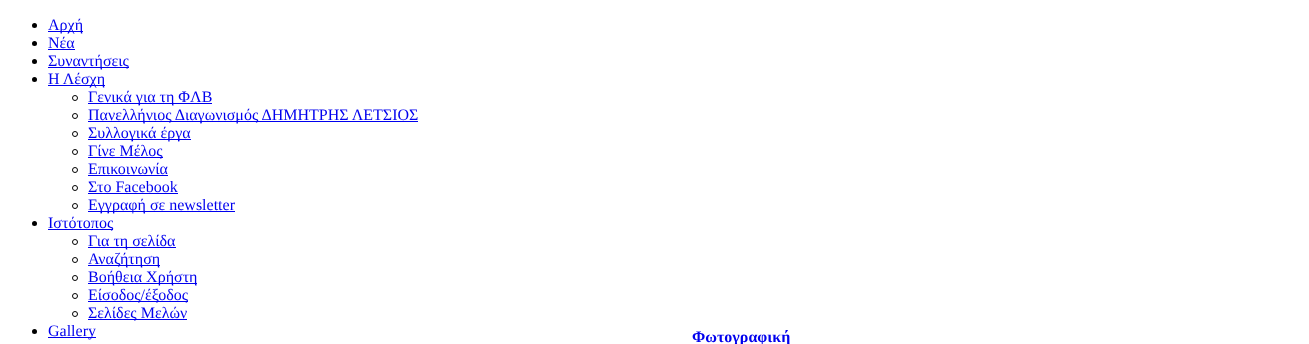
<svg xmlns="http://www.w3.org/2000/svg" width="1309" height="344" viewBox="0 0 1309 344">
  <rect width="100%" height="100%" fill="#fff"/>
  <circle cx="34.5" cy="25.5" r="2.5" fill="#000"/>
  <path d="M48 31h35v1H48z" fill="#00e"/>
  <circle cx="34.5" cy="43.5" r="2.5" fill="#000"/>
  <path d="M48 49h27v1H48z" fill="#00e"/>
  <circle cx="34.5" cy="61.5" r="2.5" fill="#000"/>
  <path d="M48 67h81v1H48z" fill="#00e"/>
  <circle cx="34.5" cy="79.5" r="2.5" fill="#000"/>
  <path d="M48 85h57v1H48z" fill="#00e"/>
  <circle cx="75" cy="98" r="2.5" fill="none" stroke="#000"/>
  <path d="M88 103h124v1H88z" fill="#00e"/>
  <circle cx="75" cy="116" r="2.5" fill="none" stroke="#000"/>
  <path d="M88 121h330v1H88z" fill="#00e"/>
  <circle cx="75" cy="134" r="2.5" fill="none" stroke="#000"/>
  <path d="M88 139h103v1H88z" fill="#00e"/>
  <circle cx="75" cy="152" r="2.5" fill="none" stroke="#000"/>
  <path d="M88 157h75v1H88z" fill="#00e"/>
  <circle cx="75" cy="170" r="2.5" fill="none" stroke="#000"/>
  <path d="M88 175h80v1H88z" fill="#00e"/>
  <circle cx="75" cy="188" r="2.5" fill="none" stroke="#000"/>
  <path d="M88 193h90v1H88z" fill="#00e"/>
  <circle cx="75" cy="206" r="2.5" fill="none" stroke="#000"/>
  <path d="M88 211h147v1H88z" fill="#00e"/>
  <circle cx="34.5" cy="223.5" r="2.5" fill="#000"/>
  <path d="M48 229h65v1H48z" fill="#00e"/>
  <circle cx="75" cy="242" r="2.5" fill="none" stroke="#000"/>
  <path d="M88 247h88v1H88z" fill="#00e"/>
  <circle cx="75" cy="260" r="2.5" fill="none" stroke="#000"/>
  <path d="M88 265h72v1H88z" fill="#00e"/>
  <circle cx="75" cy="278" r="2.5" fill="none" stroke="#000"/>
  <path d="M88 283h109v1H88z" fill="#00e"/>
  <circle cx="75" cy="296" r="2.5" fill="none" stroke="#000"/>
  <path d="M88 301h100v1H88z" fill="#00e"/>
  <circle cx="75" cy="314" r="2.5" fill="none" stroke="#000"/>
  <path d="M88 319h99v1H88z" fill="#00e"/>
  <circle cx="34.5" cy="331.5" r="2.5" fill="#000"/>
  <path d="M48 337h48v1H48z" fill="#00e"/>
  <g font-family="Liberation Serif" font-size="16" fill="#00e">
    <text x="48" y="30">Αρχή</text>
    <text x="48" y="48">Νέα</text>
    <text x="48" y="66">Συναντήσεις</text>
    <text x="48" y="84">Η Λέσχη</text>
    <text x="88" y="102">Γενικά για τη ΦΛΒ</text>
    <text x="88" y="120">Πανελλήνιος Διαγωνισμός ΔΗΜΗΤΡΗΣ ΛΕΤΣΙΟΣ</text>
    <text x="88" y="138">Συλλογικά έργα</text>
    <text x="88" y="156">Γίνε Μέλος</text>
    <text x="88" y="174">Επικοινωνία</text>
    <text x="88" y="192">Στο Facebook</text>
    <text x="88" y="210">Εγγραφή σε newsletter</text>
    <text x="48" y="228">Ιστότοπος</text>
    <text x="88" y="246">Για τη σελίδα</text>
    <text x="88" y="264">Αναζήτηση</text>
    <text x="88" y="282">Βοήθεια Χρήστη</text>
    <text x="88" y="300">Είσοδος/έξοδος</text>
    <text x="88" y="318">Σελίδες Μελών</text>
    <text x="48" y="336">Gallery</text>
  </g>
  <text x="692" y="342" font-family="Liberation Serif" font-size="16" font-weight="bold" fill="#00e">Φωτογραφική</text>
</svg>
